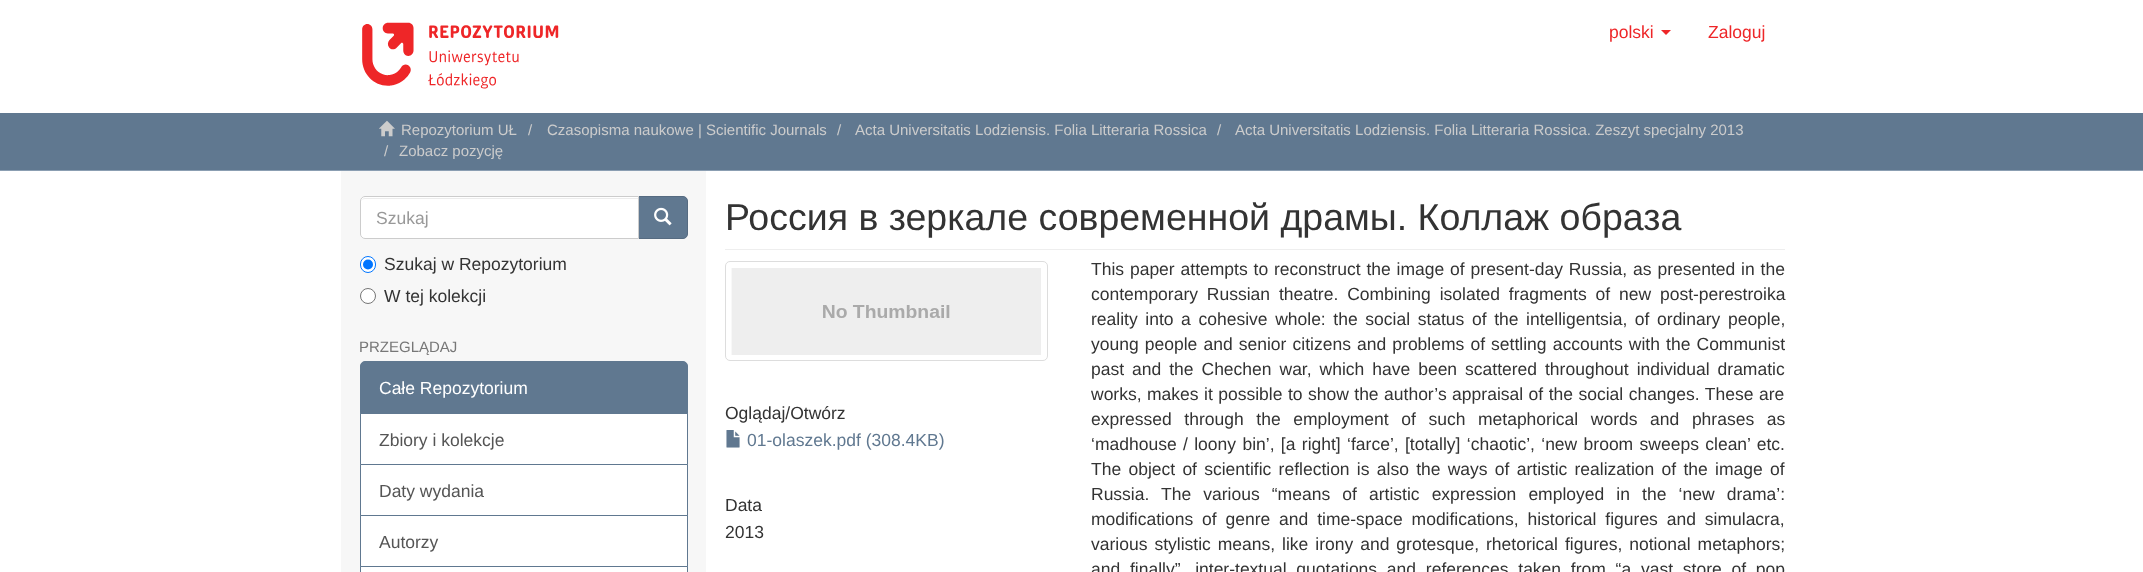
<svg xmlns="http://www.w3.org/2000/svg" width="2143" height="572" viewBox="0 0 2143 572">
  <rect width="100%" height="100%" fill="#fff"/>
  <image x="362" y="22" width="197" height="67" href="img/1.png"/>
  <path d="M1661 30H1671L1666 35Z" fill="#ee2628"/>
  <path d="M0 113h2143v57H0z" fill="#607890"/>
  <path d="M0 170h2143v1H0z" fill="#8b9eb2"/>
  <image x="379" y="120" width="16" height="17" href="img/2.png"/>
  <path d="M341 171h365v401H341z" fill="#f7f7f7"/>
  <path d="M638.5 196.5H683C685.5 196.5 687.5 198.5 687.5 201V234C687.5 236.5 685.5 238.5 683 238.5H638.5Z" fill="#607890" stroke="#566b81"/>
  <path d="M365 196H639V239H365C362 239 360 237 360 234V201C360 198 362 196 365 196Z" fill="#fff"/>
  <path d="M365 199H638V198H365C363 198 361 200 361 202C361 200 363 199 365 199Z" fill="#ececec"/>
  <path d="M365 196.5H638.5V238.5H365C362.5 238.5 360.5 236.5 360.5 234V201C360.5 198.5 362.5 196.5 365 196.5Z" fill="none" stroke="#ccc"/>
  <image x="654" y="207" width="18" height="19" href="img/3.png"/>
  <rect x="360.5" y="256.5" width="15" height="16" rx="7.5" fill="#fff" stroke="#0075ff"/>
  <circle cx="368" cy="264.5" r="5" fill="#0075ff"/>
  <circle cx="368" cy="296" r="7.5" fill="#fff" stroke="#767676"/>
  <path d="M360.5 413.5h327v51H360.5z" fill="#fff" stroke="#607890"/>
  <path d="M365 361.5H683C685.5 361.5 687.5 363.5 687.5 366V413.5H360.5V366C360.5 363.5 362.5 361.5 365 361.5Z" fill="#607890" stroke="#607890"/>
  <path d="M360.5 464.5h327v51H360.5z" fill="#fff" stroke="#607890"/>
  <path d="M361 516h326v50H361z" fill="#fff"/>
  <path d="M360.5 515.5h327v52H360.5z" fill="none" stroke="#607890"/>
  <path d="M360.5 566.5h327v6H360.5z" fill="#fff" stroke="#607890"/>
  <path d="M725 249h1060v1H725z" fill="#eee"/>
  <rect x="725.5" y="261.5" width="322" height="99" rx="4.5" fill="none" stroke="#ddd"/>
  <image x="731" y="268" width="310" height="87" href="img/4.png"/>
  <image x="726" y="430" width="14" height="18" href="img/5.png"/>
  <g font-family="Liberation Sans" font-size="17.5" fill="#ee2628">
    <text x="1609" y="38">polski</text>
    <text x="1708" y="38">Zaloguj</text>
  </g>
  <g font-family="Liberation Sans" font-size="15" fill="#ccc">
    <text x="401" y="135">Repozytorium UŁ</text>
    <text x="528" y="135">/</text>
    <text x="547" y="135">Czasopisma naukowe | Scientific Journals</text>
    <text x="837" y="135">/</text>
    <text x="855" y="135">Acta Universitatis Lodziensis. Folia Litteraria Rossica</text>
    <text x="1217" y="135">/</text>
    <text x="1235" y="135">Acta Universitatis Lodziensis. Folia Litteraria Rossica. Zeszyt specjalny 2013</text>
    <text x="384" y="156">/</text>
    <text x="399" y="156">Zobacz pozycję</text>
  </g>
  <text x="376" y="224" font-family="Liberation Sans" font-size="17.5" fill="#999">Szukaj</text>
  <g font-family="Liberation Sans" font-size="17.5" fill="#333">
    <text x="384" y="270">Szukaj w Repozytorium</text>
    <text x="384" y="302">W tej kolekcji</text>
  </g>
  <text x="359" y="352" font-family="Liberation Sans" font-size="15" fill="#777">PRZEGLĄDAJ</text>
  <text x="379" y="394" font-family="Liberation Sans" font-size="17.5" fill="#fff">Całe Repozytorium</text>
  <g font-family="Liberation Sans" font-size="17.5" fill="#555">
    <text x="379" y="446">Zbiory i kolekcje</text>
    <text x="379" y="497">Daty wydania</text>
    <text x="379" y="548">Autorzy</text>
  </g>
  <text x="725" y="230" font-family="Liberation Sans" font-size="37.5" fill="#333">Россия в зеркале современной драмы. Коллаж образа</text>
  <text x="725" y="419" font-family="Liberation Sans" font-size="17.5" fill="#333">Oglądaj/Otwórz</text>
  <text x="747" y="446" font-family="Liberation Sans" font-size="17.5" fill="#607890">01-olaszek.pdf (308.4KB)</text>
  <g font-family="Liberation Sans" font-size="17.5" fill="#333">
    <text x="725" y="511">Data</text>
    <text x="725" y="538">2013</text>
    <text x="1091" y="275" word-spacing="1">This paper attempts to reconstruct the image of present-day Russia, as presented in the</text>
    <text x="1091" y="300" word-spacing="4">contemporary Russian theatre. Combining isolated fragments of new post-perestroika</text>
    <text x="1091" y="325" word-spacing="2.75">reality into a cohesive whole: the social status of the intelligentsia, of ordinary people,</text>
    <text x="1091" y="350" word-spacing="1.25">young people and senior citizens and problems of settling accounts with the Communist</text>
    <text x="1091" y="375" word-spacing="3.1">past and the Chechen war, which have been scattered throughout individual dramatic</text>
    <text x="1091" y="400" word-spacing="0.6">works, makes it possible to show the author’s appraisal of the social changes. These are</text>
    <text x="1091" y="425" word-spacing="7.75">expressed through the employment of such metaphorical words and phrases as</text>
    <text x="1091" y="450" word-spacing="1.5">‘madhouse / loony bin’, [a right] ‘farce’, [totally] ‘chaotic’, ‘new broom sweeps clean’ etc.</text>
    <text x="1091" y="475" word-spacing="2.4">The object of scientific reflection is also the ways of artistic realization of the image of</text>
    <text x="1091" y="500">Russia.</text>
    <text x="1161" y="500" word-spacing="7.25">The various “means of artistic expression employed in the ‘new drama’:</text>
    <text x="1091" y="525" word-spacing="4">modifications of genre and time-space modifications, historical figures and simulacra,</text>
    <text x="1091" y="550" word-spacing="2.1">various stylistic means, like irony and grotesque, rhetorical figures, notional metaphors;</text>
    <text x="1091" y="575" word-spacing="4.9">and finally”, inter-textual quotations and references taken from “a vast store of pop</text>
  </g>
</svg>
